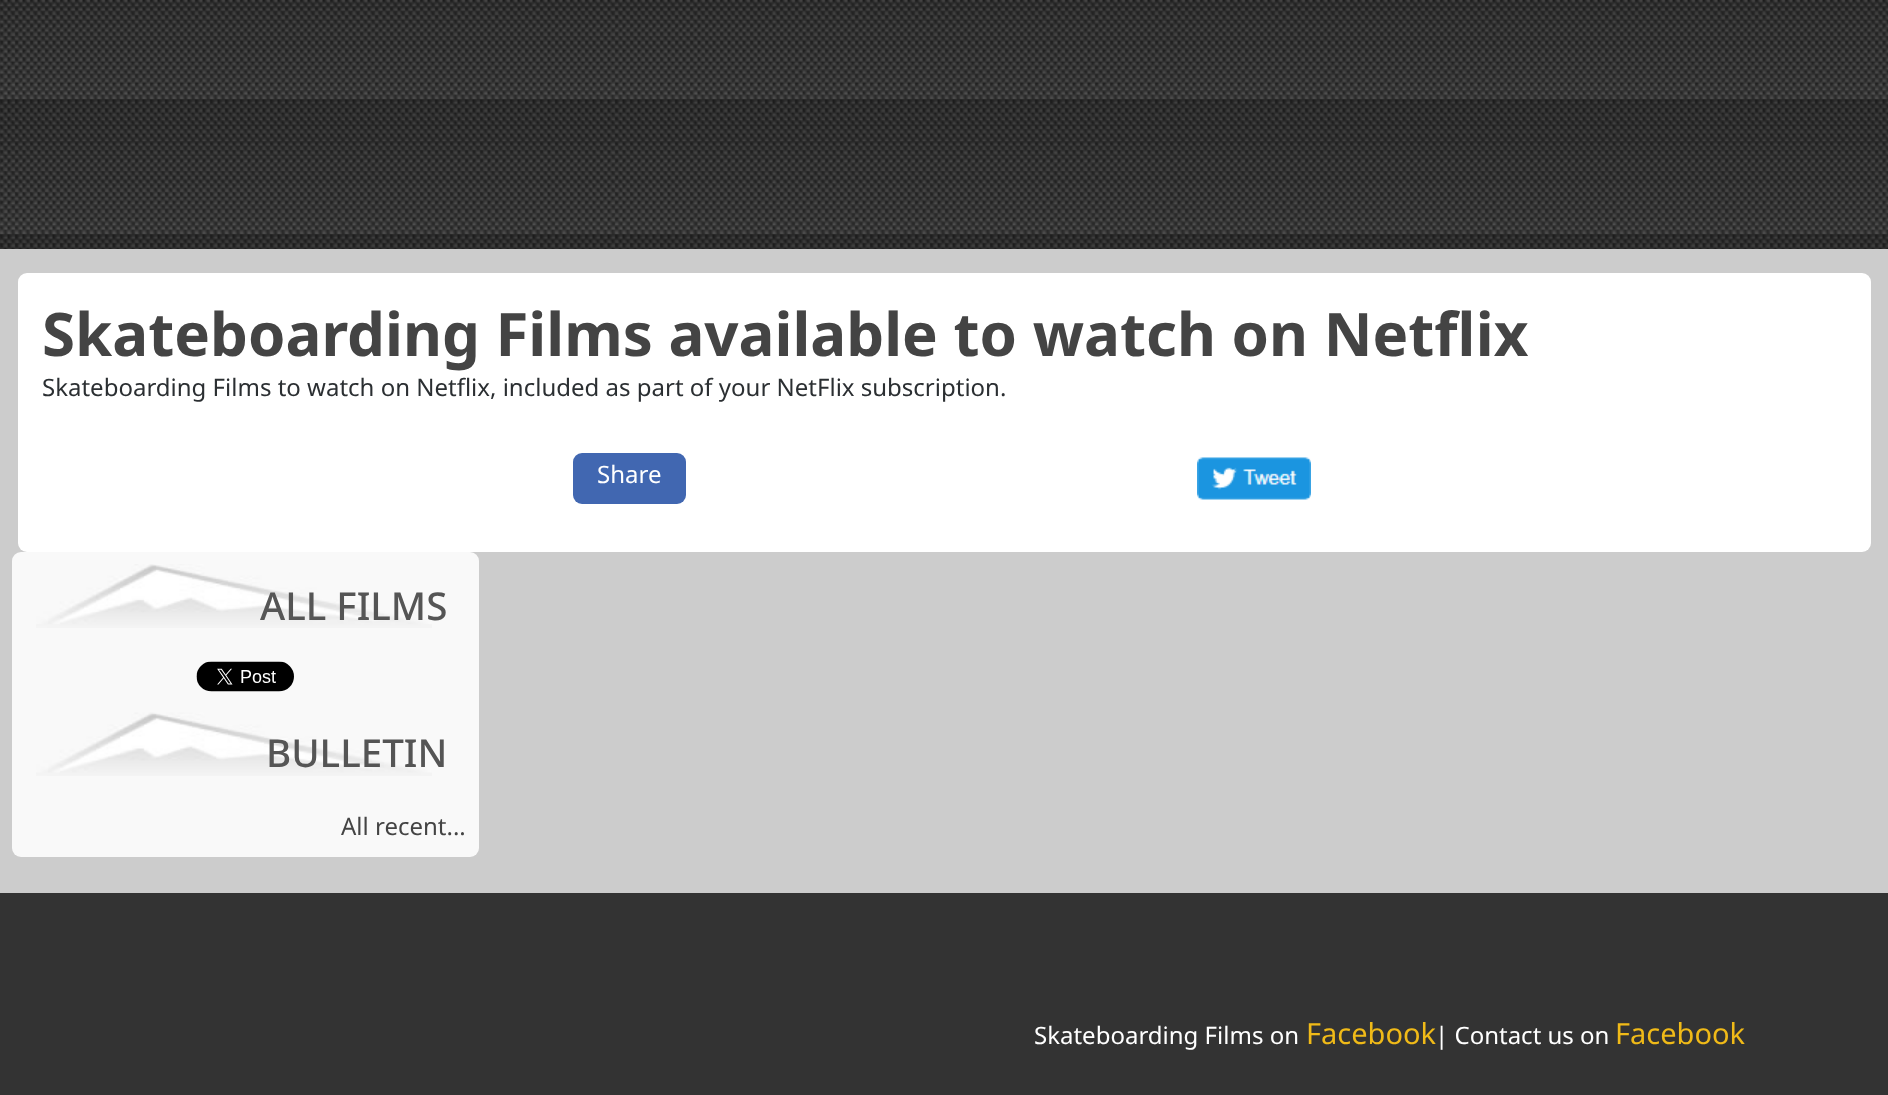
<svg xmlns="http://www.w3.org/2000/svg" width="1888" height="1095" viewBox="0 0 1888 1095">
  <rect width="100%" height="100%" fill="#ccc"/>
  <image x="0" y="0" width="1888" height="249" href="img/1.png"/>
  <rect x="18" y="273" width="1853" height="279" rx="9" fill="#fff"/>
  <rect x="573" y="453" width="113" height="51" rx="9" fill="#4167b1"/>
  <image x="1197" y="457" width="114" height="43" href="img/2.png"/>
  <rect x="12" y="552" width="467" height="305" rx="9" fill="#f9f9f9"/>
  <image x="36" y="564" width="396" height="64" href="img/3.png"/>
  <image x="196" y="661" width="98" height="31" href="img/4.png"/>
  <image x="36" y="712" width="396" height="64" href="img/5.png"/>
  <path d="M0 893h1888v202H0z" fill="#333"/>
  <text x="42" y="356" font-family="Noto Sans" font-size="60" font-weight="bold" fill="#444">Skateboarding Films available to watch on Netflix</text>
  <text x="42" y="396" font-family="Noto Sans" font-size="24" fill="#2b2f32">Skateboarding Films to watch on Netflix, included as part of your NetFlix subscription.</text>
  <text x="597" y="483" font-family="Noto Sans" font-size="24" fill="#fff">Share</text>
  <g font-family="Noto Sans" font-size="38.5" font-weight="500" fill="#555">
    <text x="260" y="620">ALL FILMS</text>
    <text x="266" y="767">BULLETIN</text>
  </g>
  <text x="341" y="835" font-family="Noto Sans" font-size="24" fill="#444">All recent...</text>
  <text x="1034" y="1044" font-family="Noto Sans" font-size="24" fill="#fff">Skateboarding Films on</text>
  <text x="1306" y="1044" font-family="Noto Sans" font-size="29" fill="#f0ba18">Facebook</text>
  <text x="1435" y="1044" font-family="Noto Sans" font-size="24" fill="#fff">| Contact us on</text>
  <text x="1615" y="1044" font-family="Noto Sans" font-size="29" fill="#f0ba18">Facebook</text>
</svg>
